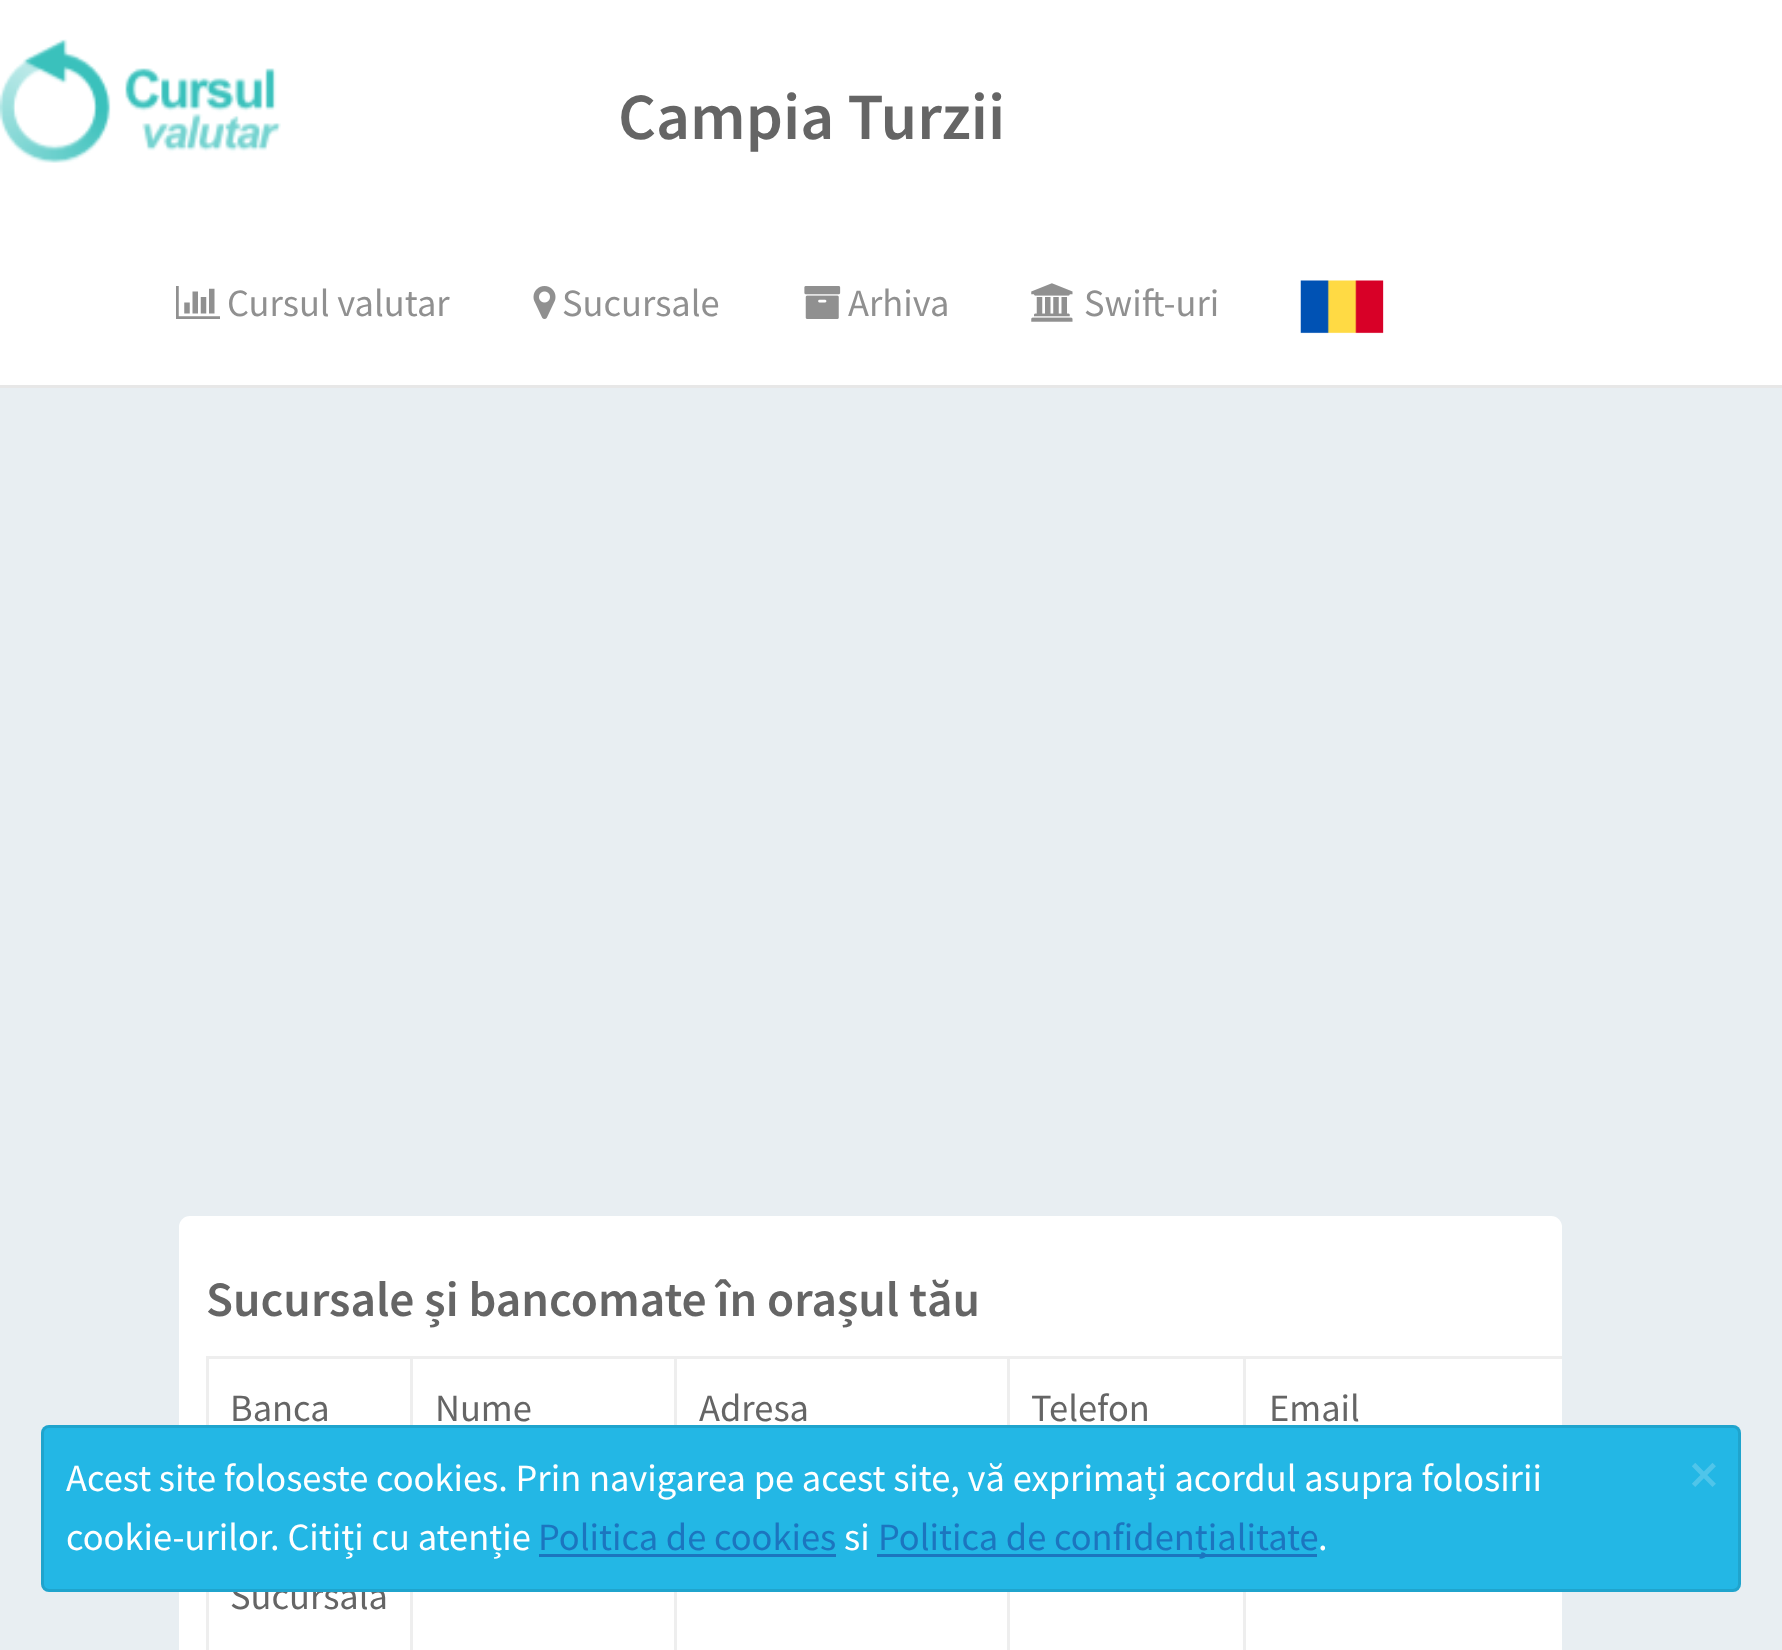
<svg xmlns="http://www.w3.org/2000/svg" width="1782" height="1650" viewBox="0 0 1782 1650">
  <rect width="100%" height="100%" fill="#fff"/>
  <path d="M0 385h1782v3H0z" fill="#e7e7e7"/>
  <image x="0" y="39" width="281" height="124" href="img/1.png"/>
  <image x="176" y="286" width="44" height="33" href="img/2.png"/>
  <image x="533" y="286" width="23" height="33" href="img/3.png"/>
  <image x="804" y="286" width="37" height="33" href="img/4.png"/>
  <image x="1031" y="283" width="42" height="39" href="img/5.png"/>
  <image x="1300" y="280" width="84" height="54" href="img/6.png"/>
  <path d="M0 388h1782v1262H0z" fill="#e8eef2"/>
  <rect x="179" y="1216" width="1383" height="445" rx="11" fill="#fff"/>
  <path d="M1243 1356h319v3H1243z" fill="#eee"/>
  <path d="M1243 1356h3v69H1243z" fill="#eee"/>
  <path d="M1007 1356h239v3H1007z" fill="#eee"/>
  <path d="M1007 1356h3v69H1007z" fill="#eee"/>
  <path d="M674 1356h335v3H674z" fill="#eee"/>
  <path d="M674 1356h3v69H674z" fill="#eee"/>
  <path d="M410 1356h267v3H410z" fill="#eee"/>
  <path d="M410 1356h3v69H410z" fill="#eee"/>
  <path d="M206 1356h207v3H206z" fill="#eee"/>
  <path d="M206 1356h3v69H206z" fill="#eee"/>
  <path d="M206 1592h3v58H206z" fill="#eee"/>
  <path d="M410 1592h3v58H410z" fill="#eee"/>
  <path d="M674 1592h3v58H674z" fill="#eee"/>
  <path d="M1007 1592h3v58H1007z" fill="#eee"/>
  <path d="M1243 1592h3v58H1243z" fill="#eee"/>
  <text x="618" y="139" font-family="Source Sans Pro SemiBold" font-size="66" font-weight="600" fill="#656565">Campia Turzii</text>
  <g font-family="Source Sans Pro" font-size="38.5" fill="#909090">
    <text x="227" y="316">Cursul valutar</text>
    <text x="562" y="316">Sucursale</text>
    <text x="848" y="316">Arhiva</text>
    <text x="1084" y="316">Swift-uri</text>
  </g>
  <text x="206" y="1316" font-family="Source Sans Pro SemiBold" font-size="49.5" font-weight="600" fill="#656565">Sucursale și bancomate în orașul tău</text>
  <g font-family="Source Sans Pro" font-size="38.5" fill="#656565">
    <text x="230" y="1421">Banca</text>
    <text x="435" y="1421">Nume</text>
    <text x="699" y="1421">Adresa</text>
    <text x="1031" y="1421">Telefon</text>
    <text x="1269" y="1421">Email</text>
    <text x="230" y="1609">Sucursală</text>
  </g>
  <rect x="41" y="1425" width="1700" height="167" rx="8" fill="#23b7e5"/>
  <rect x="42.5" y="1426.5" width="1697" height="164" rx="6.5" fill="none" stroke="#0000001a" stroke-width="3"/>
  <text x="66" y="1491" font-family="Source Sans Pro" font-size="38.5" fill="#fff">Acest site foloseste cookies. Prin navigarea pe acest site, vă exprimați acordul asupra folosirii</text>
  <text x="1689" y="1494" font-family="Source Sans Pro SemiBold" font-size="58" font-weight="600" fill="#4fc5ea">×</text>
  <text x="66" y="1550" font-family="Source Sans Pro" font-size="38.5" fill="#fff">cookie-urilor. Citiți cu atenție</text>
  <text x="538" y="1550" font-family="Source Sans Pro" font-size="38.5" fill="#1c75bf">Politica de cookies</text>
  <path d="M539 1554h297v3H539z" fill="#1c75bf"/>
  <text x="844" y="1550" font-family="Source Sans Pro" font-size="38.5" fill="#fff">si</text>
  <path d="M877 1554h440v3H877z" fill="#1c75bf"/>
  <text x="878" y="1550" font-family="Source Sans Pro" font-size="38.5" fill="#1c75bf">Politica de confidențialitate</text>
  <text x="1318" y="1550" font-family="Source Sans Pro" font-size="38.5" fill="#fff">.</text>
</svg>
